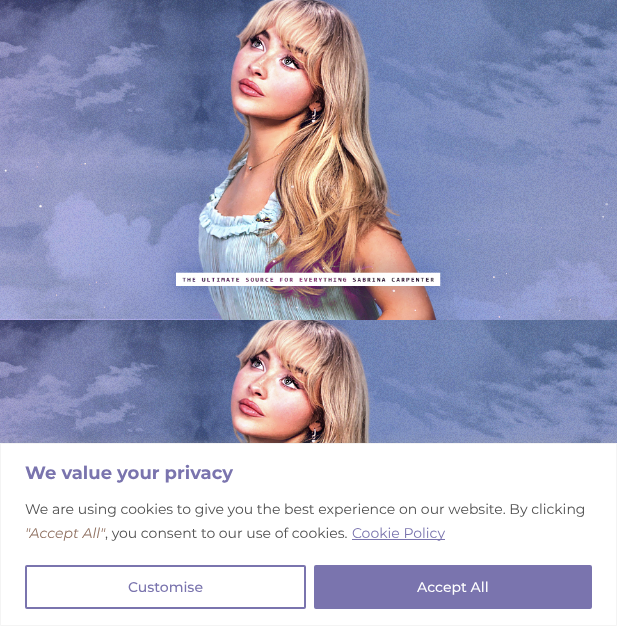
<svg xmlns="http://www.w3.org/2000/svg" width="617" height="626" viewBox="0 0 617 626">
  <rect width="100%" height="100%" fill="#fff"/>
  <image x="0" y="0" width="617" height="443" href="img/1.png"/>
  <path d="M0 442h617v183H0z" fill="#acabab4d" filter="blur(5px)"/>
  <path d="M0.5 443.5h616v182H0.5z" fill="#fff" stroke="#f4f4f4"/>
  <path d="M352 539h93v1H352z" fill="#7a74ae"/>
  <rect x="26" y="566" width="279" height="42" rx="1" fill="none" stroke="#7a74ae" stroke-width="2"/>
  <rect x="315" y="566" width="276" height="42" rx="1" fill="#7a74ae" stroke="#7a74ae" stroke-width="2"/>
  <text x="25" y="479" font-family="Montserrat" font-size="18" font-weight="bold" fill="#7a74ae">We value your privacy</text>
  <text x="25" y="514" font-family="Montserrat" font-size="14" fill="#4f4f4f">We are using cookies to give you the best experience on our website. By clicking</text>
  <text x="25" y="538" font-family="Montserrat" font-size="14" font-style="italic" fill="#8f7060">"Accept All"</text>
  <text x="105" y="538" font-family="Montserrat" font-size="14" fill="#4f4f4f">, you consent to our use of cookies.</text>
  <text x="352" y="538" font-family="Montserrat" font-size="14" fill="#7a74ae">Cookie Policy</text>
  <text x="128" y="592" font-family="Montserrat" font-size="14" font-weight="500" fill="#7a74ae">Customise</text>
  <text x="417" y="592" font-family="Montserrat" font-size="14" font-weight="500" fill="#fff">Accept All</text>
</svg>
